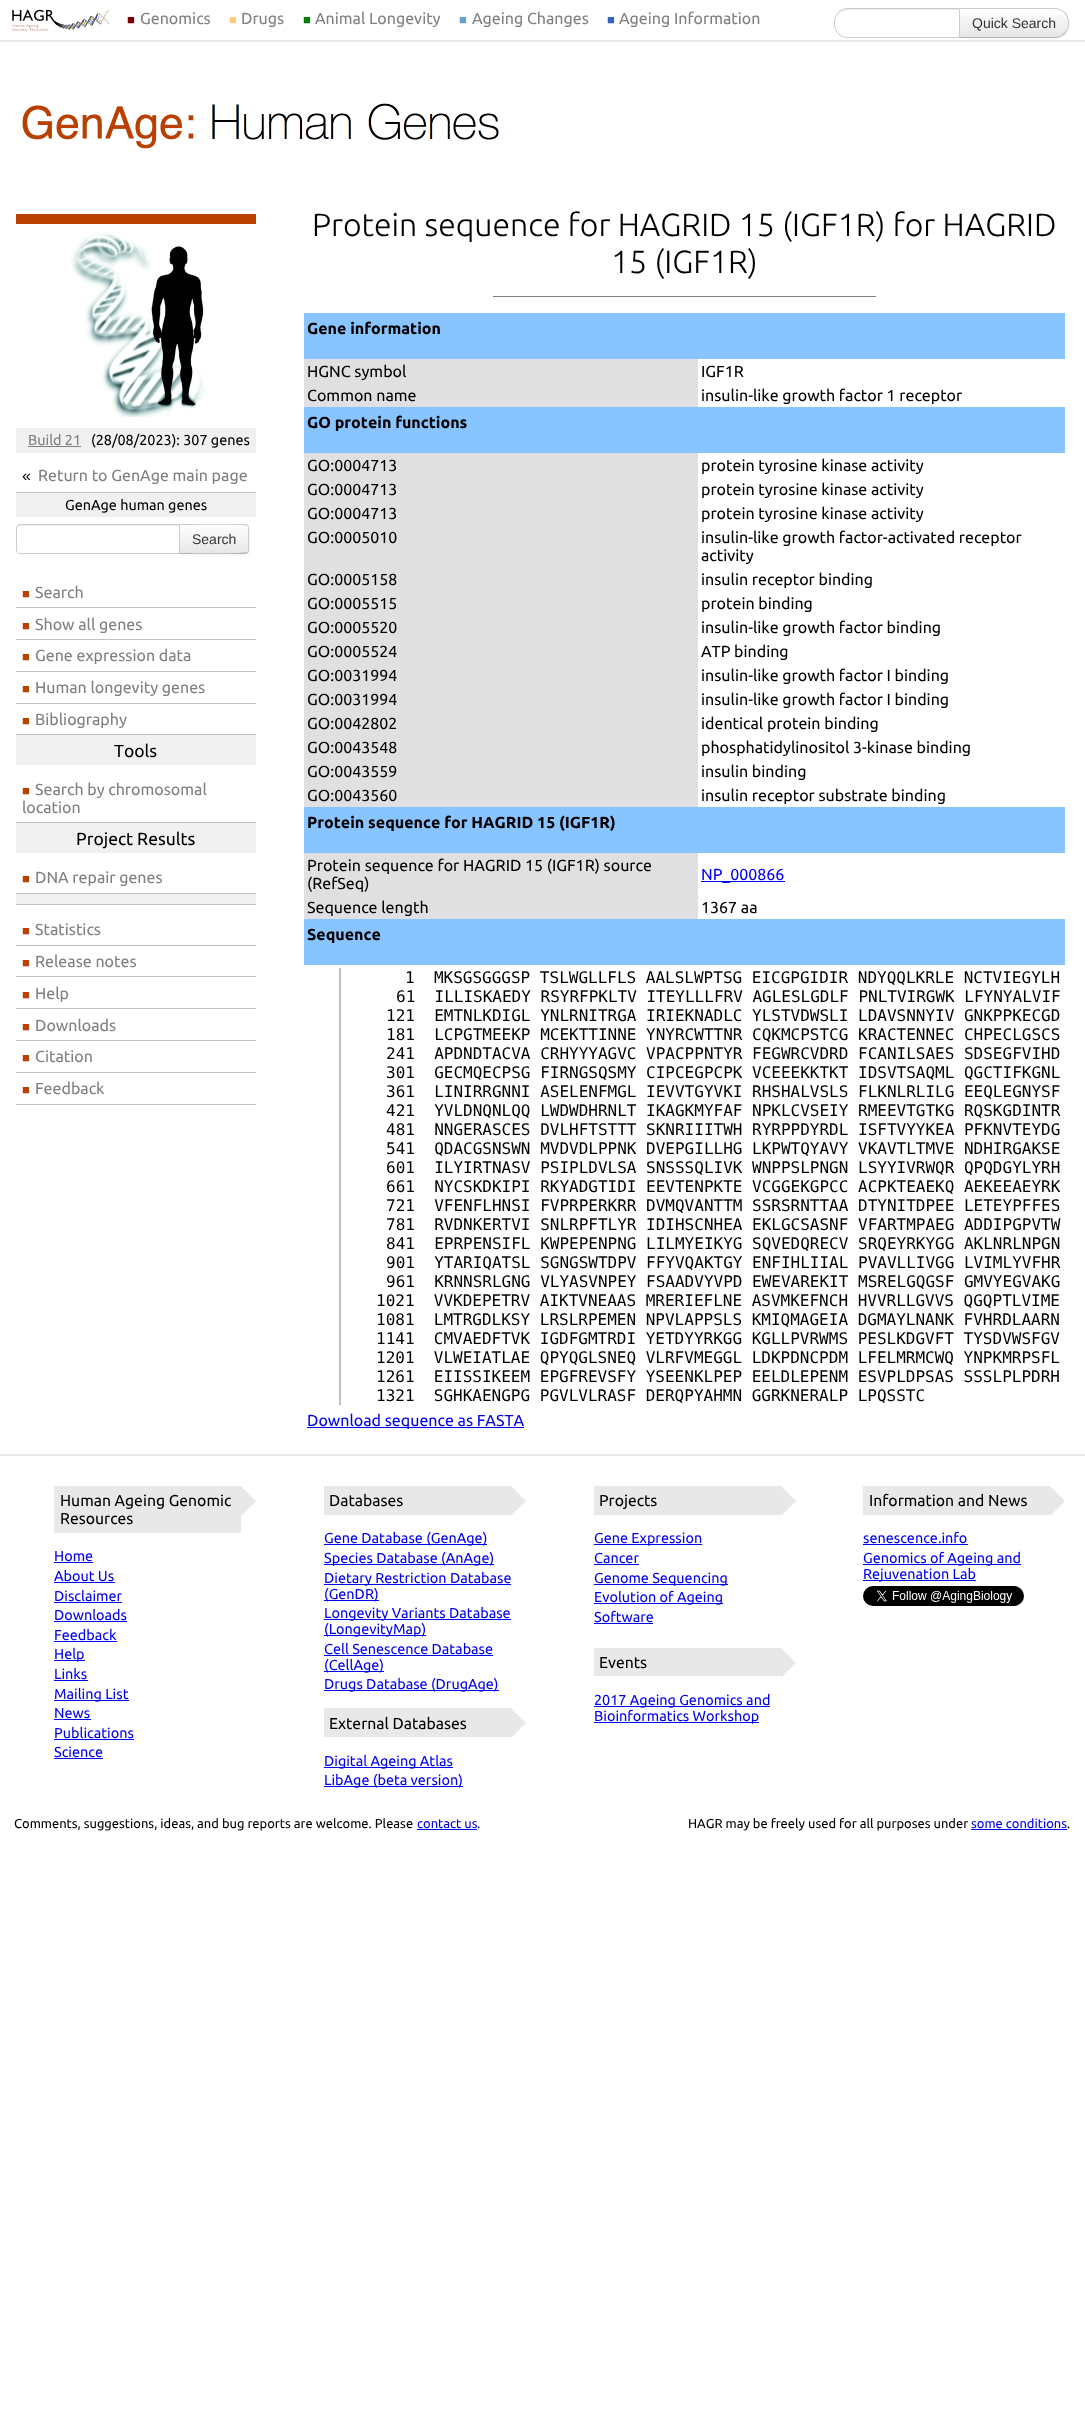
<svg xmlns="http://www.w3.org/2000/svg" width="1085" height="2429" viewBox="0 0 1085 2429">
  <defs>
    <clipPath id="clip1"><path d="M959 8H1055C1062.5 8 1069 14.5 1069 22V24C1069 31.5 1062.5 38 1055 38H959Z"/></clipPath>
    <linearGradient id="g1" gradientUnits="userSpaceOnUse" x1="1014" y1="9" x2="1014" y2="37"><stop offset="0" stop-color="#fff"/><stop offset="1" stop-color="#e6e6e6"/></linearGradient>
    <clipPath id="clip2"><path d="M179 524H245C247 524 249 526 249 528V550C249 552 247 554 245 554H179Z"/></clipPath>
    <linearGradient id="g2" gradientUnits="userSpaceOnUse" x1="214" y1="525" x2="214" y2="553"><stop offset="0" stop-color="#fff"/><stop offset="1" stop-color="#e6e6e6"/></linearGradient>
  </defs>
  <rect width="100%" height="100%" fill="#fff"/>
  <path d="M0 40h1085v2H0z" fill="#e8e8e8"/>
  <image x="12" y="9" width="97" height="22" href="img/1.png"/>
  <rect x="959" y="9" width="110" height="30" rx="14" fill="#0000000d" filter="blur(1px)"/>
  <g clip-path="url(#clip1)">
    <path d="M960 9h109v28H960z" fill="url(#g1)"/>
  </g>
  <path d="M959 8L960 9H1055C1058 9 1062 10 1064 13L1065 12C1062 10 1059 8 1055 8Z" fill="#ccc"/>
  <path d="M1069 24C1069 19.5 1068.5 15.5 1065 12L1064 13C1069.5 18 1069.5 28 1064 33L1065 34C1067.5 31.5 1069 28 1069 24Z" fill="#ccc"/>
  <path d="M1055 38C1059 38 1062 36 1065 34L1064 33C1062 36 1058 37 1055 37H960L959 38Z" fill="#b3b3b3"/>
  <path d="M848 8H960V38H848C840.5 38 834 31.5 834 24V22C834 14.5 840.5 8 848 8Z" fill="#fff"/>
  <path d="M848 10H959V9H848C841 9 835 15 835 22V23C835 16 841 10 848 10Z" fill="#ececec"/>
  <path d="M848 8.5H959.5V37.5H848C840.5 37.5 834.5 31.5 834.5 24V22C834.5 14.5 840.5 8.5 848 8.5Z" fill="none" stroke="#ccc"/>
  <image x="22" y="103" width="477" height="46" href="img/2.png"/>
  <path d="M16 214h240v10H16z" fill="#ba4200"/>
  <image x="70" y="232" width="138" height="185" href="img/3.png"/>
  <path d="M16 428h240v25H16z" fill="#f0f0f0"/>
  <path d="M28 446h53v1H28z" fill="#808080"/>
  <path d="M16 492h240v1H16z" fill="#c0c0c0"/>
  <path d="M16 493h240v24H16z" fill="#f0f0f0"/>
  <rect x="179" y="525" width="70" height="30" rx="4" fill="#0000000d" filter="blur(1px)"/>
  <path d="M179 524H245C247 524 249 526 249 528V550C249 552 247 554 245 554H179Z" fill="#f5f5f5"/>
  <g clip-path="url(#clip2)">
    <path d="M180 525h69v28H180z" fill="url(#g2)"/>
  </g>
  <path d="M179 524L180 525C187 525 246 524 247 526L248 525L245 524Z" fill="#ccc"/>
  <path d="M249 550V528C249 527 248.5 526 248 525L247 526C248 526 248 527 248 528V550C248 551 248 552 247 552L248 553C248.5 552 249 551 249 550Z" fill="#ccc"/>
  <path d="M245 554L248 553L247 552C246 554 187 553 180 553L179 554Z" fill="#b3b3b3"/>
  <path d="M20 524H180V554H20C18 554 16 552 16 550V528C16 526 18 524 20 524Z" fill="#fff"/>
  <path d="M20 526H179V525H20C18 525 17 527 17 529C17 527 18 526 20 526Z" fill="#ececec"/>
  <path d="M20 524.5H179.5V553.5H20C18 553.5 16.5 552 16.5 550V528C16.5 526 18 524.5 20 524.5Z" fill="none" stroke="#ccc"/>
  <path d="M16 607h240v1H16z" fill="#c0c0c0"/>
  <path d="M16 639h240v1H16z" fill="#c0c0c0"/>
  <path d="M16 671h240v1H16z" fill="#c0c0c0"/>
  <path d="M16 703h240v1H16z" fill="#c0c0c0"/>
  <path d="M16 734h240v1H16z" fill="#c0c0c0"/>
  <path d="M16 735h240v30H16z" fill="#f0f0f0"/>
  <path d="M16 822h240v1H16z" fill="#c0c0c0"/>
  <path d="M16 823h240v30H16z" fill="#f0f0f0"/>
  <path d="M16 893h240v1H16z" fill="#c0c0c0"/>
  <path d="M16 894h240v10H16z" fill="#f0f0f0"/>
  <path d="M16 904h240v1H16z" fill="#c0c0c0"/>
  <path d="M16 945h240v1H16z" fill="#c0c0c0"/>
  <path d="M16 976h240v1H16z" fill="#c0c0c0"/>
  <path d="M16 1008h240v1H16z" fill="#c0c0c0"/>
  <path d="M16 1040h240v1H16z" fill="#c0c0c0"/>
  <path d="M16 1072h240v1H16z" fill="#c0c0c0"/>
  <path d="M16 1104h240v1H16z" fill="#c0c0c0"/>
  <path d="M493 296h383v1H493z" fill="#808080"/>
  <path d="M304 313h761v46H304z" fill="#88c4ff"/>
  <path d="M304 359h394v48H304z" fill="#e0e0e0"/>
  <path d="M304 407h761v46H304z" fill="#88c4ff"/>
  <path d="M304 453h394v354H304z" fill="#e0e0e0"/>
  <path d="M304 807h761v46H304z" fill="#88c4ff"/>
  <path d="M304 853h394v66H304z" fill="#e0e0e0"/>
  <path d="M701 881h84v1H701z" fill="#00e"/>
  <path d="M304 919h761v46H304z" fill="#88c4ff"/>
  <path d="M339 968h2v437H339z" fill="#c0c0c0"/>
  <path d="M307 1427h217v1H307z" fill="#00e"/>
  <path d="M0 1454h1085v2H0z" fill="#e8e8e8"/>
  <path d="M54 1486h187v47H54z" fill="#e8e8e8"/>
  <path d="M241 1516V1486L256 1501Z" fill="#e8e8e8"/>
  <path d="M54 1562h39v1H54z" fill="#00e"/>
  <path d="M54 1582h61v1H54z" fill="#00e"/>
  <path d="M54 1602h68v1H54z" fill="#00e"/>
  <path d="M54 1621h73v1H54z" fill="#00e"/>
  <path d="M54 1641h63v1H54z" fill="#00e"/>
  <path d="M54 1660h31v1H54z" fill="#00e"/>
  <path d="M54 1680h34v1H54z" fill="#00e"/>
  <path d="M54 1700h75v1H54z" fill="#00e"/>
  <path d="M54 1719h37v1H54z" fill="#00e"/>
  <path d="M54 1739h80v1H54z" fill="#00e"/>
  <path d="M54 1758h49v1H54z" fill="#00e"/>
  <path d="M324 1486h187v29H324z" fill="#e8e8e8"/>
  <path d="M511 1516V1486L526 1501Z" fill="#e8e8e8"/>
  <path d="M324 1544h163v1H324z" fill="#00e"/>
  <path d="M324 1564h170v1H324z" fill="#00e"/>
  <path d="M324 1584h187v1H324z" fill="#00e"/>
  <path d="M324 1600h55v1H324z" fill="#00e"/>
  <path d="M324 1619h187v1H324z" fill="#00e"/>
  <path d="M324 1635h102v1H324z" fill="#00e"/>
  <path d="M324 1655h169v1H324z" fill="#00e"/>
  <path d="M324 1671h60v1H324z" fill="#00e"/>
  <path d="M324 1690h175v1H324z" fill="#00e"/>
  <path d="M324 1708h187v29H324z" fill="#e8e8e8"/>
  <path d="M511 1738V1708L526 1723Z" fill="#e8e8e8"/>
  <path d="M324 1767h129v1H324z" fill="#00e"/>
  <path d="M324 1786h139v1H324z" fill="#00e"/>
  <path d="M594 1486h187v29H594z" fill="#e8e8e8"/>
  <path d="M781 1516V1486L796 1501Z" fill="#e8e8e8"/>
  <path d="M594 1544h108v1H594z" fill="#00e"/>
  <path d="M594 1564h45v1H594z" fill="#00e"/>
  <path d="M594 1584h134v1H594z" fill="#00e"/>
  <path d="M594 1603h129v1H594z" fill="#00e"/>
  <path d="M594 1623h59v1H594z" fill="#00e"/>
  <path d="M863 1486h187v29H863z" fill="#e8e8e8"/>
  <path d="M1050 1516V1486L1065 1501Z" fill="#e8e8e8"/>
  <path d="M863 1544h105v1H863z" fill="#00e"/>
  <path d="M863 1564h158v1H863z" fill="#00e"/>
  <path d="M863 1580h113v1H863z" fill="#00e"/>
  <image x="863" y="1586" width="161" height="20" href="img/4.png"/>
  <path d="M594 1648h187v28H594z" fill="#e8e8e8"/>
  <path d="M781 1678V1648L796 1663Z" fill="#e8e8e8"/>
  <path d="M594 1706h176v1H594z" fill="#00e"/>
  <path d="M594 1722h165v1H594z" fill="#00e"/>
  <path d="M417 1829h60v1H417z" fill="#00e"/>
  <path d="M971 1829h96v1H971z" fill="#00e"/>
  <text x="127" y="24" font-family="Liberation Sans" font-size="13" fill="#800000">■</text>
  <text x="140" y="24" font-family="Ubuntu" font-size="16" fill="#808080">Genomics</text>
  <text x="229" y="24" font-family="Liberation Sans" font-size="13" fill="#ffc882">■</text>
  <text x="241" y="24" font-family="Ubuntu" font-size="16" fill="#808080">Drugs</text>
  <text x="303" y="24" font-family="Liberation Sans" font-size="13" fill="#008000">■</text>
  <text x="315" y="24" font-family="Ubuntu" font-size="16" fill="#808080">Animal Longevity</text>
  <text x="459" y="24" font-family="Liberation Sans" font-size="13" fill="#679fcd">■</text>
  <text x="472" y="24" font-family="Ubuntu" font-size="16" fill="#808080">Ageing Changes</text>
  <text x="607" y="24" font-family="Liberation Sans" font-size="13" fill="#3264c7">■</text>
  <text x="619" y="24" font-family="Ubuntu" font-size="16" fill="#808080">Ageing Information</text>
  <text x="972" y="28" font-family="Liberation Sans" font-size="14" fill="#333">Quick Search</text>
  <text x="28" y="445" font-family="Ubuntu" font-size="14.4" fill="#808080">Build 21</text>
  <text x="91" y="445" font-family="Ubuntu" font-size="14.4" fill="#000">(28/08/2023): 307 genes</text>
  <text x="22" y="481" font-family="Liberation Sans" font-size="16" fill="#000">«</text>
  <text x="38" y="481" font-family="Ubuntu" font-size="16" fill="#808080">Return to GenAge main page</text>
  <text x="65" y="510" font-family="Ubuntu" font-size="14.4" fill="#000">GenAge human genes</text>
  <text x="192" y="544" font-family="Liberation Sans" font-size="14" fill="#333">Search</text>
  <text x="22" y="598" font-family="Liberation Sans" font-size="13" fill="#ba4200">■</text>
  <text x="35" y="598" font-family="Ubuntu" font-size="16" fill="#808080">Search</text>
  <text x="22" y="630" font-family="Liberation Sans" font-size="13" fill="#ba4200">■</text>
  <text x="35" y="630" font-family="Ubuntu" font-size="16" fill="#808080">Show all genes</text>
  <text x="22" y="661" font-family="Liberation Sans" font-size="13" fill="#ba4200">■</text>
  <text x="35" y="661" font-family="Ubuntu" font-size="16" fill="#808080">Gene expression data</text>
  <text x="22" y="693" font-family="Liberation Sans" font-size="13" fill="#ba4200">■</text>
  <text x="35" y="693" font-family="Ubuntu" font-size="16" fill="#808080">Human longevity genes</text>
  <text x="22" y="725" font-family="Liberation Sans" font-size="13" fill="#ba4200">■</text>
  <text x="35" y="725" font-family="Ubuntu" font-size="16" fill="#808080">Bibliography</text>
  <text x="114" y="757" font-family="Ubuntu" font-size="17.5" fill="#000">Tools</text>
  <text x="22" y="795" font-family="Liberation Sans" font-size="13" fill="#ba4200">■</text>
  <g font-family="Ubuntu" font-size="16" fill="#808080">
    <text x="35" y="795">Search by chromosomal</text>
    <text x="22" y="813">location</text>
  </g>
  <text x="76" y="845" font-family="Ubuntu" font-size="17.5" fill="#000">Project Results</text>
  <text x="22" y="883" font-family="Liberation Sans" font-size="13" fill="#ba4200">■</text>
  <text x="35" y="883" font-family="Ubuntu" font-size="16" fill="#808080">DNA repair genes</text>
  <text x="22" y="935" font-family="Liberation Sans" font-size="13" fill="#ba4200">■</text>
  <text x="35" y="935" font-family="Ubuntu" font-size="16" fill="#808080">Statistics</text>
  <text x="22" y="967" font-family="Liberation Sans" font-size="13" fill="#ba4200">■</text>
  <text x="35" y="967" font-family="Ubuntu" font-size="16" fill="#808080">Release notes</text>
  <text x="22" y="999" font-family="Liberation Sans" font-size="13" fill="#ba4200">■</text>
  <text x="35" y="999" font-family="Ubuntu" font-size="16" fill="#808080">Help</text>
  <text x="22" y="1031" font-family="Liberation Sans" font-size="13" fill="#ba4200">■</text>
  <text x="35" y="1031" font-family="Ubuntu" font-size="16" fill="#808080">Downloads</text>
  <text x="22" y="1062" font-family="Liberation Sans" font-size="13" fill="#ba4200">■</text>
  <text x="35" y="1062" font-family="Ubuntu" font-size="16" fill="#808080">Citation</text>
  <text x="22" y="1094" font-family="Liberation Sans" font-size="13" fill="#ba4200">■</text>
  <text x="35" y="1094" font-family="Ubuntu" font-size="16" fill="#808080">Feedback</text>
  <g font-family="Ubuntu" font-size="32" font-weight="300" fill="#000">
    <text x="312" y="236">Protein sequence for HAGRID 15 (IGF1R) for HAGRID</text>
    <text x="611" y="273">15 (IGF1R)</text>
  </g>
  <text x="307" y="334" font-family="Ubuntu" font-size="16" font-weight="bold" fill="#000">Gene information</text>
  <g font-family="Ubuntu" font-size="16" fill="#000">
    <text x="307" y="377">HGNC symbol</text>
    <text x="701" y="377">IGF1R</text>
    <text x="307" y="401">Common name</text>
    <text x="701" y="401">insulin-like growth factor 1 receptor</text>
  </g>
  <text x="307" y="428" font-family="Ubuntu" font-size="16" font-weight="bold" fill="#000">GO protein functions</text>
  <g font-family="Ubuntu" font-size="16" fill="#000">
    <text x="307" y="471">GO:0004713</text>
    <text x="701" y="471">protein tyrosine kinase activity</text>
    <text x="307" y="495">GO:0004713</text>
    <text x="701" y="495">protein tyrosine kinase activity</text>
    <text x="307" y="519">GO:0004713</text>
    <text x="701" y="519">protein tyrosine kinase activity</text>
    <text x="307" y="543">GO:0005010</text>
    <text x="701" y="543">insulin-like growth factor-activated receptor</text>
    <text x="701" y="561">activity</text>
    <text x="307" y="585">GO:0005158</text>
    <text x="701" y="585">insulin receptor binding</text>
    <text x="307" y="609">GO:0005515</text>
    <text x="701" y="609">protein binding</text>
    <text x="307" y="633">GO:0005520</text>
    <text x="701" y="633">insulin-like growth factor binding</text>
    <text x="307" y="657">GO:0005524</text>
    <text x="701" y="657">ATP binding</text>
    <text x="307" y="681">GO:0031994</text>
    <text x="701" y="681">insulin-like growth factor I binding</text>
    <text x="307" y="705">GO:0031994</text>
    <text x="701" y="705">insulin-like growth factor I binding</text>
    <text x="307" y="729">GO:0042802</text>
    <text x="701" y="729">identical protein binding</text>
    <text x="307" y="753">GO:0043548</text>
    <text x="701" y="753">phosphatidylinositol 3-kinase binding</text>
    <text x="307" y="777">GO:0043559</text>
    <text x="701" y="777">insulin binding</text>
    <text x="307" y="801">GO:0043560</text>
    <text x="701" y="801">insulin receptor substrate binding</text>
  </g>
  <text x="307" y="828" font-family="Ubuntu" font-size="16" font-weight="bold" fill="#000">Protein sequence for HAGRID 15 (IGF1R)</text>
  <g font-family="Ubuntu" font-size="16" fill="#000">
    <text x="307" y="871">Protein sequence for HAGRID 15 (IGF1R) source</text>
    <text x="307" y="889">(RefSeq)</text>
  </g>
  <text x="701" y="880" font-family="Ubuntu" font-size="16" fill="#00e">NP_000866</text>
  <g font-family="Ubuntu" font-size="16" fill="#000">
    <text x="307" y="913">Sequence length</text>
    <text x="701" y="913">1367 aa</text>
  </g>
  <text x="307" y="940" font-family="Ubuntu" font-size="16" font-weight="bold" fill="#000">Sequence</text>
  <g font-family="DejaVu Sans Mono" font-size="16" fill="#000">
    <text x="405" y="983" xml:space="preserve">1  MKSGSGGGSP TSLWGLLFLS AALSLWPTSG EICGPGIDIR NDYQQLKRLE NCTVIEGYLH</text>
    <text x="396" y="1002" xml:space="preserve">61  ILLISKAEDY RSYRFPKLTV ITEYLLLFRV AGLESLGDLF PNLTVIRGWK LFYNYALVIF</text>
    <text x="386" y="1021" xml:space="preserve">121  EMTNLKDIGL YNLRNITRGA IRIEKNADLC YLSTVDWSLI LDAVSNNYIV GNKPPKECGD</text>
    <text x="386" y="1040" xml:space="preserve">181  LCPGTMEEKP MCEKTTINNE YNYRCWTTNR CQKMCPSTCG KRACTENNEC CHPECLGSCS</text>
    <text x="386" y="1059" xml:space="preserve">241  APDNDTACVA CRHYYYAGVC VPACPPNTYR FEGWRCVDRD FCANILSAES SDSEGFVIHD</text>
    <text x="386" y="1078" xml:space="preserve">301  GECMQECPSG FIRNGSQSMY CIPCEGPCPK VCEEEKKTKT IDSVTSAQML QGCTIFKGNL</text>
    <text x="386" y="1097" xml:space="preserve">361  LINIRRGNNI ASELENFMGL IEVVTGYVKI RHSHALVSLS FLKNLRLILG EEQLEGNYSF</text>
    <text x="386" y="1116" xml:space="preserve">421  YVLDNQNLQQ LWDWDHRNLT IKAGKMYFAF NPKLCVSEIY RMEEVTGTKG RQSKGDINTR</text>
    <text x="386" y="1135" xml:space="preserve">481  NNGERASCES DVLHFTSTTT SKNRIIITWH RYRPPDYRDL ISFTVYYKEA PFKNVTEYDG</text>
    <text x="386" y="1154" xml:space="preserve">541  QDACGSNSWN MVDVDLPPNK DVEPGILLHG LKPWTQYAVY VKAVTLTMVE NDHIRGAKSE</text>
    <text x="386" y="1173" xml:space="preserve">601  ILYIRTNASV PSIPLDVLSA SNSSSQLIVK WNPPSLPNGN LSYYIVRWQR QPQDGYLYRH</text>
    <text x="386" y="1192" xml:space="preserve">661  NYCSKDKIPI RKYADGTIDI EEVTENPKTE VCGGEKGPCC ACPKTEAEKQ AEKEEAEYRK</text>
    <text x="386" y="1211" xml:space="preserve">721  VFENFLHNSI FVPRPERKRR DVMQVANTTM SSRSRNTTAA DTYNITDPEE LETEYPFFES</text>
    <text x="386" y="1230" xml:space="preserve">781  RVDNKERTVI SNLRPFTLYR IDIHSCNHEA EKLGCSASNF VFARTMPAEG ADDIPGPVTW</text>
    <text x="386" y="1249" xml:space="preserve">841  EPRPENSIFL KWPEPENPNG LILMYEIKYG SQVEDQRECV SRQEYRKYGG AKLNRLNPGN</text>
    <text x="386" y="1268" xml:space="preserve">901  YTARIQATSL SGNGSWTDPV FFYVQAKTGY ENFIHLIIAL PVAVLLIVGG LVIMLYVFHR</text>
    <text x="386" y="1287" xml:space="preserve">961  KRNNSRLGNG VLYASVNPEY FSAADVYVPD EWEVAREKIT MSRELGQGSF GMVYEGVAKG</text>
    <text x="376" y="1306" xml:space="preserve">1021  VVKDEPETRV AIKTVNEAAS MRERIEFLNE ASVMKEFNCH HVVRLLGVVS QGQPTLVIME</text>
    <text x="376" y="1325" xml:space="preserve">1081  LMTRGDLKSY LRSLRPEMEN NPVLAPPSLS KMIQMAGEIA DGMAYLNANK FVHRDLAARN</text>
    <text x="376" y="1344" xml:space="preserve">1141  CMVAEDFTVK IGDFGMTRDI YETDYYRKGG KGLLPVRWMS PESLKDGVFT TYSDVWSFGV</text>
    <text x="376" y="1363" xml:space="preserve">1201  VLWEIATLAE QPYQGLSNEQ VLRFVMEGGL LDKPDNCPDM LFELMRMCWQ YNPKMRPSFL</text>
    <text x="376" y="1382" xml:space="preserve">1261  EIISSIKEEM EPGFREVSFY YSEENKLPEP EELDLEPENM ESVPLDPSAS SSSLPLPDRH</text>
    <text x="376" y="1401" xml:space="preserve">1321  SGHKAENGPG PGVLVLRASF DERQPYAHMN GGRKNERALP LPQSSTC</text>
  </g>
  <text x="307" y="1426" font-family="Ubuntu" font-size="16" fill="#00e">Download sequence as FASTA</text>
  <g font-family="Ubuntu" font-size="15.75" fill="#000">
    <text x="60" y="1506">Human Ageing Genomic</text>
    <text x="60" y="1524">Resources</text>
  </g>
  <g font-family="Ubuntu" font-size="14.4" fill="#00e">
    <text x="54" y="1561">Home</text>
    <text x="54" y="1581">About Us</text>
    <text x="54" y="1601">Disclaimer</text>
    <text x="54" y="1620">Downloads</text>
    <text x="54" y="1640">Feedback</text>
    <text x="54" y="1659">Help</text>
    <text x="54" y="1679">Links</text>
    <text x="54" y="1699">Mailing List</text>
    <text x="54" y="1718">News</text>
    <text x="54" y="1738">Publications</text>
    <text x="54" y="1757">Science</text>
  </g>
  <text x="329" y="1506" font-family="Ubuntu" font-size="15.75" fill="#000">Databases</text>
  <g font-family="Ubuntu" font-size="14.4" fill="#00e">
    <text x="324" y="1543">Gene Database (GenAge)</text>
    <text x="324" y="1563">Species Database (AnAge)</text>
    <text x="324" y="1583">Dietary Restriction Database</text>
    <text x="324" y="1599">(GenDR)</text>
    <text x="324" y="1618">Longevity Variants Database</text>
    <text x="324" y="1634">(LongevityMap)</text>
    <text x="324" y="1654">Cell Senescence Database</text>
    <text x="324" y="1670">(CellAge)</text>
    <text x="324" y="1689">Drugs Database (DrugAge)</text>
  </g>
  <text x="329" y="1729" font-family="Ubuntu" font-size="15.75" fill="#000">External Databases</text>
  <g font-family="Ubuntu" font-size="14.4" fill="#00e">
    <text x="324" y="1766">Digital Ageing Atlas</text>
    <text x="324" y="1785">LibAge (beta version)</text>
  </g>
  <text x="599" y="1506" font-family="Ubuntu" font-size="15.75" fill="#000">Projects</text>
  <g font-family="Ubuntu" font-size="14.4" fill="#00e">
    <text x="594" y="1543">Gene Expression</text>
    <text x="594" y="1563">Cancer</text>
    <text x="594" y="1583">Genome Sequencing</text>
    <text x="594" y="1602">Evolution of Ageing</text>
    <text x="594" y="1622">Software</text>
  </g>
  <text x="869" y="1506" font-family="Ubuntu" font-size="15.75" fill="#000">Information and News</text>
  <g font-family="Ubuntu" font-size="14.4" fill="#00e">
    <text x="863" y="1543">senescence.info</text>
    <text x="863" y="1563">Genomics of Ageing and</text>
    <text x="863" y="1579">Rejuvenation Lab</text>
  </g>
  <text x="599" y="1668" font-family="Ubuntu" font-size="15.75" fill="#000">Events</text>
  <g font-family="Ubuntu" font-size="14.4" fill="#00e">
    <text x="594" y="1705">2017 Ageing Genomics and</text>
    <text x="594" y="1721">Bioinformatics Workshop</text>
  </g>
  <text x="14" y="1828" font-family="Ubuntu" font-size="12.95" fill="#000">Comments, suggestions, ideas, and bug reports are welcome. Please</text>
  <text x="417" y="1828" font-family="Ubuntu" font-size="12.95" fill="#00e">contact us</text>
  <g font-family="Ubuntu" font-size="12.95" fill="#000">
    <text x="477" y="1828">.</text>
    <text x="688" y="1828">HAGR may be freely used for all purposes under</text>
  </g>
  <text x="971" y="1828" font-family="Ubuntu" font-size="12.95" fill="#00e">some conditions</text>
  <text x="1067" y="1828" font-family="Ubuntu" font-size="12.95" fill="#000">.</text>
</svg>
